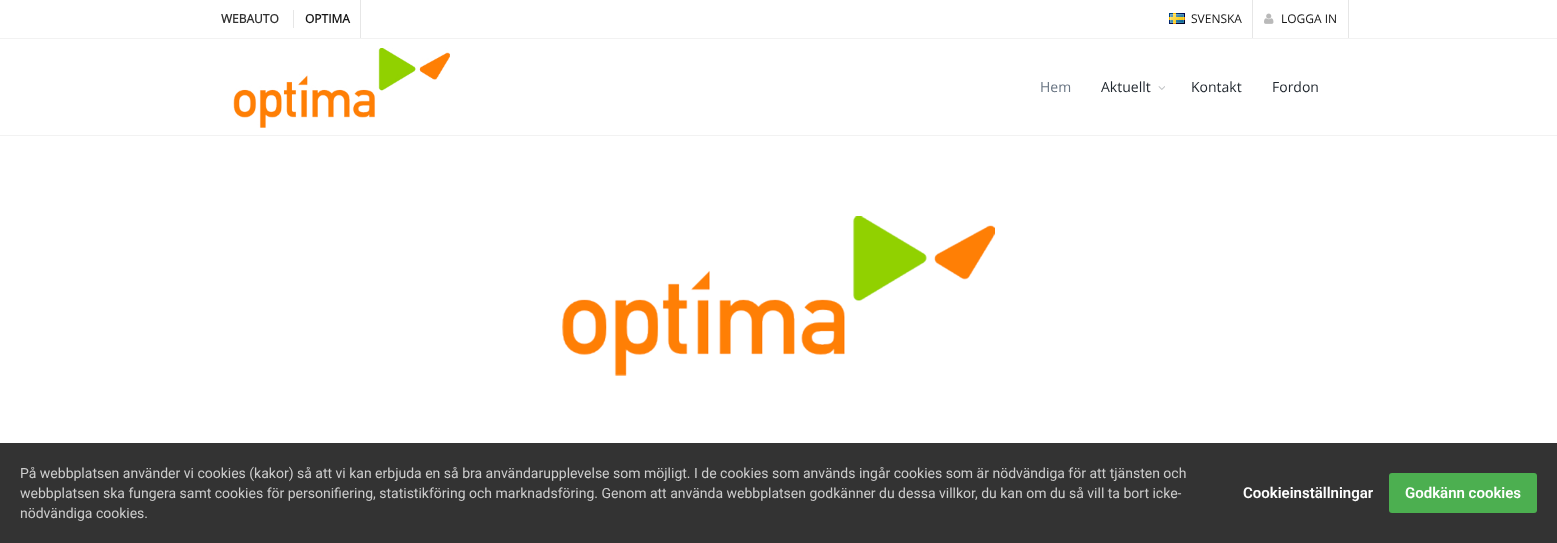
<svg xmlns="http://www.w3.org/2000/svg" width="1557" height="543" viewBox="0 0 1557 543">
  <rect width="100%" height="100%" fill="#fff"/>
  <path d="M0 38h1557v1H0z" fill="#f2f2f2"/>
  <path d="M293 10h1v18H293z" fill="#e6e6e6"/>
  <path d="M360 0h1v38H360z" fill="#e6e6e6"/>
  <path d="M1252 0h1v38H1252z" fill="#e6e6e6"/>
  <image x="1169" y="13" width="16" height="11" href="img/1.png"/>
  <path d="M1348 0h1v38H1348z" fill="#e6e6e6"/>
  <image x="1264" y="13" width="10" height="11" href="img/2.png"/>
  <path d="M0 135h1557v1H0z" fill="#f2f2f2"/>
  <image x="233" y="48" width="217" height="80" href="img/3.png"/>
  <image x="1158" y="86" width="7" height="4" href="img/4.png"/>
  <image x="562" y="216" width="433" height="160" href="img/5.png"/>
  <path d="M0 443h1557v100H0z" fill="#333"/>
  <rect x="1389" y="473" width="148" height="40" rx="3" fill="#4caf50"/>
  <text x="221" y="23" font-family="Open Sans" font-size="12" font-weight="bold" fill="#333">WEBAUTO</text>
  <text x="305" y="23" font-family="Open Sans" font-size="12" font-weight="bold" fill="#151515">OPTIMA</text>
  <g font-family="Open Sans" font-size="12" fill="#151515">
    <text x="1191" y="23">SVENSKA</text>
    <text x="1281" y="23">LOGGA IN</text>
  </g>
  <text x="1040" y="92" font-family="Open Sans" font-size="14" fill="#687482">Hem</text>
  <g font-family="Open Sans" font-size="14" fill="#1f262d">
    <text x="1101" y="92">Aktuellt</text>
    <text x="1191" y="92">Kontakt</text>
    <text x="1272" y="92">Fordon</text>
  </g>
  <g font-family="Roboto" font-size="14" fill="#ccc">
    <text x="20" y="478">På webbplatsen använder vi cookies (kakor) så att vi kan erbjuda en så bra användarupplevelse som möjligt. I de cookies som används ingår cookies som är nödvändiga för att tjänsten och</text>
    <text x="20" y="498">webbplatsen ska fungera samt cookies för personifiering, statistikföring och marknadsföring. Genom att använda webbplatsen godkänner du dessa villkor, du kan om du så vill ta bort icke-</text>
    <text x="20" y="518">nödvändiga cookies.</text>
  </g>
  <g font-family="Roboto" font-size="15" font-weight="600" fill="#fff">
    <text x="1243" y="498">Cookieinställningar</text>
    <text x="1405" y="498">Godkänn cookies</text>
  </g>
</svg>
